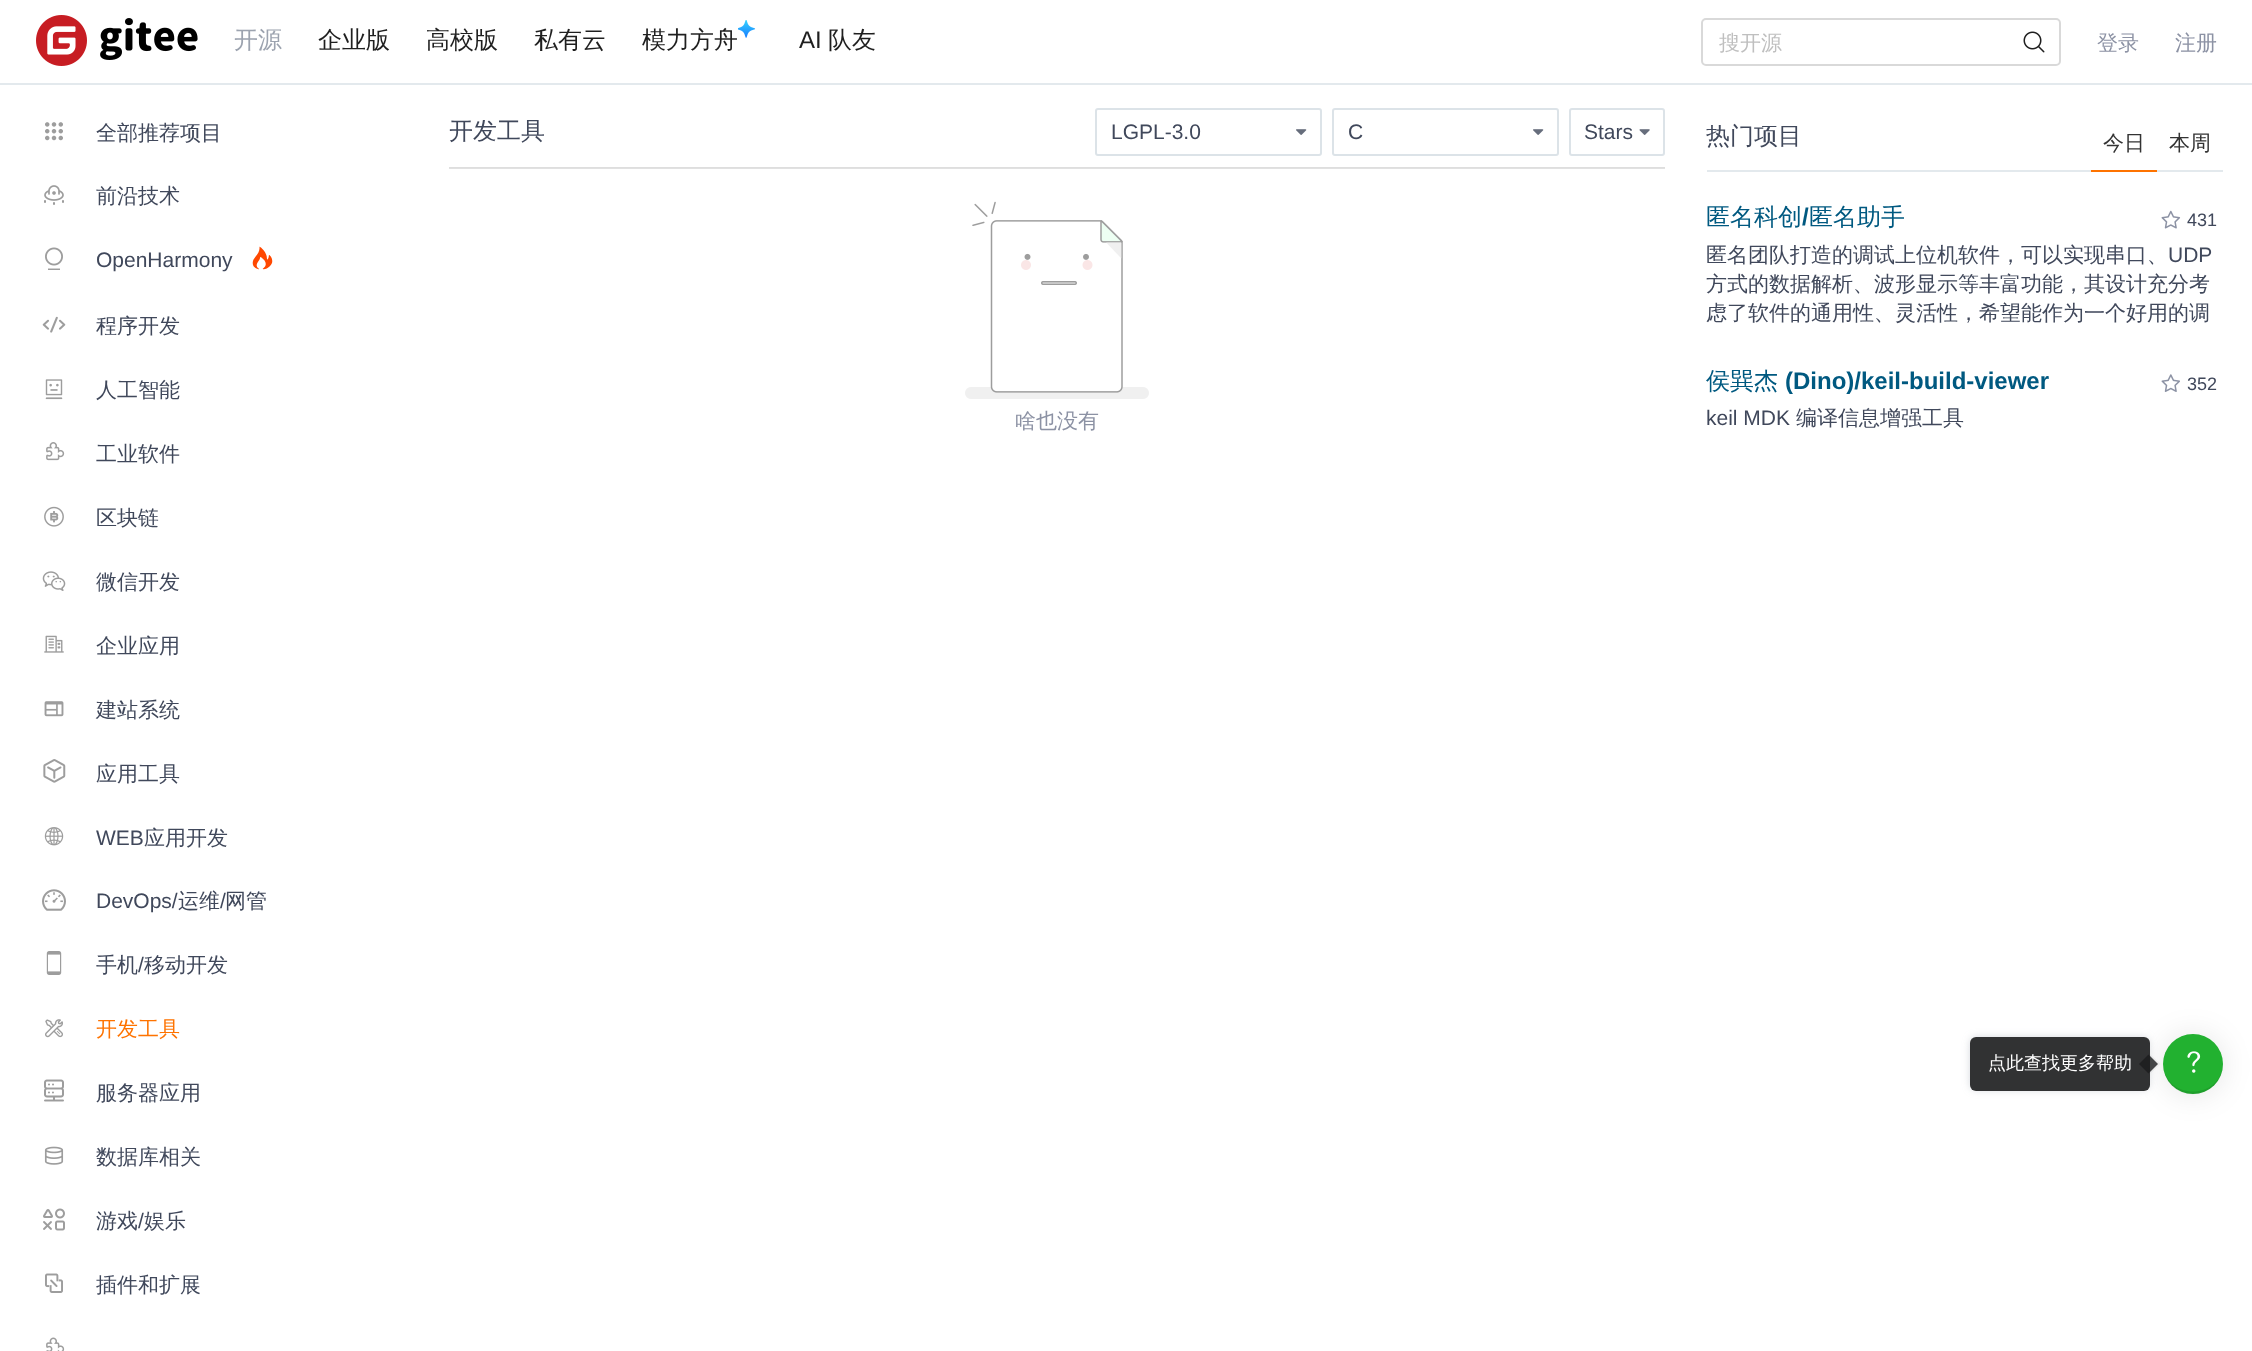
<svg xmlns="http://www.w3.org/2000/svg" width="2252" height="1351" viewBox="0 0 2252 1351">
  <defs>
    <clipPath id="clip1"><path d="M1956 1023H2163V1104H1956ZM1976 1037H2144C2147.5 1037 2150 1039.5 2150 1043V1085C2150 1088.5 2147.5 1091 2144 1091H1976C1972.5 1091 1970 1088.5 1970 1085V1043C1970 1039.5 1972.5 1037 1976 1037Z" clip-rule="evenodd"/></clipPath>
  </defs>
  <rect width="100%" height="100%" fill="#fff"/>
  <path d="M0 83h2252v2H0z" fill="#e3e9ed"/>
  <image x="36" y="15" width="162" height="51" href="img/1.png"/>
  <image x="738" y="20" width="18" height="18" href="img/2.png"/>
  <rect x="1702" y="19" width="358" height="46" rx="4" fill="none" stroke="#d9d9d9" stroke-width="2"/>
  <image x="2023" y="31" width="22" height="22" href="img/3.png"/>
  <image x="45" y="122" width="18" height="19" href="img/4.png"/>
  <image x="44" y="185" width="20" height="20" href="img/5.png"/>
  <image x="45" y="247" width="18" height="23" href="img/6.png"/>
  <image x="252" y="246" width="21" height="24" href="img/7.png"/>
  <image x="42" y="316" width="24" height="17" href="img/8.png"/>
  <image x="45" y="379" width="18" height="21" href="img/9.png"/>
  <image x="46" y="442" width="19" height="19" href="img/10.png"/>
  <image x="44" y="506" width="20" height="21" href="img/11.png"/>
  <image x="42" y="571" width="24" height="20" href="img/12.png"/>
  <image x="44" y="635" width="20" height="18" href="img/13.png"/>
  <image x="44" y="701" width="20" height="16" href="img/14.png"/>
  <image x="43" y="759" width="23" height="24" href="img/15.png"/>
  <image x="44" y="827" width="20" height="19" href="img/16.png"/>
  <image x="42" y="889" width="24" height="22" href="img/17.png"/>
  <image x="46" y="951" width="16" height="24" href="img/18.png"/>
  <image x="45" y="1019" width="18" height="19" href="img/19.png"/>
  <image x="44" y="1079" width="20" height="23" href="img/20.png"/>
  <image x="44" y="1146" width="20" height="19" href="img/21.png"/>
  <image x="43" y="1208" width="22" height="23" href="img/22.png"/>
  <image x="45" y="1273" width="18" height="20" href="img/23.png"/>
  <image x="46" y="1337" width="19" height="14" href="img/24.png"/>
  <rect x="1096" y="109" width="225" height="46" rx="2" fill="none" stroke="#dce3e8" stroke-width="2"/>
  <image x="1296" y="129" width="11" height="6" href="img/25.png"/>
  <rect x="1333" y="109" width="225" height="46" rx="2" fill="none" stroke="#dce3e8" stroke-width="2"/>
  <image x="1533" y="129" width="11" height="6" href="img/25.png"/>
  <rect x="1570" y="109" width="94" height="46" rx="2" fill="none" stroke="#dce3e8" stroke-width="2"/>
  <image x="1639" y="129" width="11" height="6" href="img/26.png"/>
  <path d="M449 167h1216v1H449z" fill="#dedede"/>
  <path d="M449 168h1216v1H449z" fill="#e1e1e1"/>
  <image x="965" y="201" width="184" height="198" href="img/27.png"/>
  <path d="M1707 170h384v2H1707z" fill="#e3e9ed"/>
  <path d="M2091 170h66v2H2091z" fill="#fe7300"/>
  <path d="M2157 170h66v2H2157z" fill="#e3e9ed"/>
  <image x="2161" y="210" width="20" height="19" href="img/28.png"/>
  <image x="2161" y="374" width="19" height="18" href="img/29.png"/>
  <g clip-path="url(#clip1)">
    <rect x="1971" y="1038" width="177" height="51" rx="5" fill="#8c92a373" filter="blur(4.5px)"/>
  </g>
  <rect x="2163" y="1035" width="60" height="60" rx="30" fill="#0000001a" filter="blur(15px)"/>
  <rect x="1970" y="1037" width="180" height="54" rx="6" fill="#1b1c1de6"/>
  <path d="M2150.5 1054.5L2149.5 1055.5L2158 1064L2149.5 1072.5L2150.5 1073.5L2160.5 1064Z" fill="#b3b3b329"/>
  <path d="M2148.5 1054.5L2158 1064L2148.5 1073.5L2139 1064Z" fill="#1b1c1dcf"/>
  <circle cx="2193" cy="1064" r="30" fill="#22b130"/>
  <path d="M2163 1063C2163 1069 2165 1076 2168 1081C2185 1106 2224 1093 2223 1063C2222 1101 2164 1101 2163 1063Z" fill="#0000001a"/>
  <image x="2187" y="1051" width="14" height="22" href="img/30.png"/>
  <text x="234" y="48" font-family="WenQuanYi Zen Hei" font-size="24" font-weight="500" fill="#9ca3af">开源</text>
  <g font-family="WenQuanYi Zen Hei" font-size="24" font-weight="500" fill="#1f1f1f">
    <text x="318" y="48">企业版</text>
    <text x="426" y="48">高校版</text>
    <text x="534" y="48">私有云</text>
    <text x="642" y="48">模力方舟</text>
  </g>
  <text x="799" y="48" font-family="Liberation Sans" font-size="24" fill="#1f1f1f">AI</text>
  <text x="828" y="48" font-family="WenQuanYi Zen Hei" font-size="24" font-weight="500" fill="#1f1f1f">队友</text>
  <text x="1719" y="50" font-family="WenQuanYi Zen Hei" font-size="21" font-weight="500" fill="#bfbfbf">搜开源</text>
  <g font-family="WenQuanYi Zen Hei" font-size="21" font-weight="500" fill="#8c92a4">
    <text x="2097" y="50">登录</text>
    <text x="2175" y="50">注册</text>
  </g>
  <g font-family="WenQuanYi Zen Hei" font-size="21" font-weight="500" fill="#40485b">
    <text x="96" y="140">全部推荐项目</text>
    <text x="96" y="203">前沿技术</text>
  </g>
  <text x="96" y="267" font-family="Liberation Sans" font-size="21" fill="#40485b">OpenHarmony</text>
  <g font-family="WenQuanYi Zen Hei" font-size="21" font-weight="500" fill="#40485b">
    <text x="96" y="333">程序开发</text>
    <text x="96" y="397">人工智能</text>
    <text x="96" y="461">工业软件</text>
    <text x="96" y="525">区块链</text>
    <text x="96" y="589">微信开发</text>
    <text x="96" y="653">企业应用</text>
    <text x="96" y="717">建站系统</text>
    <text x="96" y="781">应用工具</text>
  </g>
  <text x="96" y="845" font-family="Liberation Sans" font-size="21" fill="#40485b">WEB</text>
  <text x="144" y="845" font-family="WenQuanYi Zen Hei" font-size="21" font-weight="500" fill="#40485b">应用开发</text>
  <text x="96" y="908" font-family="Liberation Sans" font-size="21" fill="#40485b">DevOps/</text>
  <text x="178" y="908" font-family="WenQuanYi Zen Hei" font-size="21" font-weight="500" fill="#40485b">运维</text>
  <text x="220" y="908" font-family="Liberation Sans" font-size="21" fill="#40485b">/</text>
  <g font-family="WenQuanYi Zen Hei" font-size="21" font-weight="500" fill="#40485b">
    <text x="225" y="908">网管</text>
    <text x="96" y="972">手机</text>
  </g>
  <text x="138" y="972" font-family="Liberation Sans" font-size="21" fill="#40485b">/</text>
  <text x="144" y="972" font-family="WenQuanYi Zen Hei" font-size="21" font-weight="500" fill="#40485b">移动开发</text>
  <text x="96" y="1036" font-family="WenQuanYi Zen Hei" font-size="21" font-weight="500" fill="#fe7300">开发工具</text>
  <g font-family="WenQuanYi Zen Hei" font-size="21" font-weight="500" fill="#40485b">
    <text x="96" y="1100">服务器应用</text>
    <text x="96" y="1164">数据库相关</text>
    <text x="96" y="1228">游戏</text>
  </g>
  <text x="138" y="1228" font-family="Liberation Sans" font-size="21" fill="#40485b">/</text>
  <g font-family="WenQuanYi Zen Hei" font-size="21" font-weight="500" fill="#40485b">
    <text x="144" y="1228">娱乐</text>
    <text x="96" y="1292">插件和扩展</text>
  </g>
  <text x="449" y="139" font-family="WenQuanYi Zen Hei" font-size="24" font-weight="500" fill="#40485b">开发工具</text>
  <g font-family="Liberation Sans" font-size="21" fill="#40485b">
    <text x="1111" y="139">LGPL-3.0</text>
    <text x="1348" y="139">C</text>
    <text x="1584" y="139">Stars</text>
  </g>
  <text x="1015" y="428" font-family="WenQuanYi Zen Hei" font-size="21" font-weight="500" fill="#8c92a4">啥也没有</text>
  <text x="1706" y="144" font-family="WenQuanYi Zen Hei" font-size="24" font-weight="500" fill="#40485b">热门项目</text>
  <g font-family="WenQuanYi Zen Hei" font-size="21" font-weight="500" fill="#333">
    <text x="2103" y="150">今日</text>
    <text x="2169" y="150">本周</text>
  </g>
  <text x="1706" y="225" font-family="WenQuanYi Zen Hei" font-size="24" font-weight="500" fill="#005980">匿名科创</text>
  <text x="1802" y="225" font-family="Liberation Sans" font-size="24" font-weight="bold" fill="#005980">/</text>
  <text x="1809" y="225" font-family="WenQuanYi Zen Hei" font-size="24" font-weight="500" fill="#005980">匿名助手</text>
  <text x="2187" y="226" font-family="Liberation Sans" font-size="18" fill="#40485b">431</text>
  <text x="1706" y="262" font-family="WenQuanYi Zen Hei" font-size="21" font-weight="500" fill="#40485b">匿名团队打造的调试上位机软件，可以实现串口、</text>
  <text x="2168" y="262" font-family="Liberation Sans" font-size="21" fill="#40485b">UDP</text>
  <g font-family="WenQuanYi Zen Hei" font-size="21" font-weight="500" fill="#40485b">
    <text x="1706" y="291">方式的数据解析、波形显示等丰富功能，其设计充分考</text>
    <text x="1706" y="320">虑了软件的通用性、灵活性，希望能作为一个好用的调</text>
  </g>
  <text x="1706" y="389" font-family="WenQuanYi Zen Hei" font-size="24" font-weight="500" fill="#005980">侯巽杰</text>
  <text x="1785" y="389" font-family="Liberation Sans" font-size="24" font-weight="bold" fill="#005980">(Dino)/keil-build-viewer</text>
  <text x="2187" y="390" font-family="Liberation Sans" font-size="18" fill="#40485b">352</text>
  <text x="1706" y="425" font-family="Liberation Sans" font-size="21" fill="#40485b">keil MDK</text>
  <text x="1796" y="425" font-family="WenQuanYi Zen Hei" font-size="21" font-weight="500" fill="#40485b">编译信息增强工具</text>
  <text x="1988" y="1069" font-family="WenQuanYi Zen Hei" font-size="18" font-weight="500" fill="#fff">点此查找更多帮助</text>
</svg>
